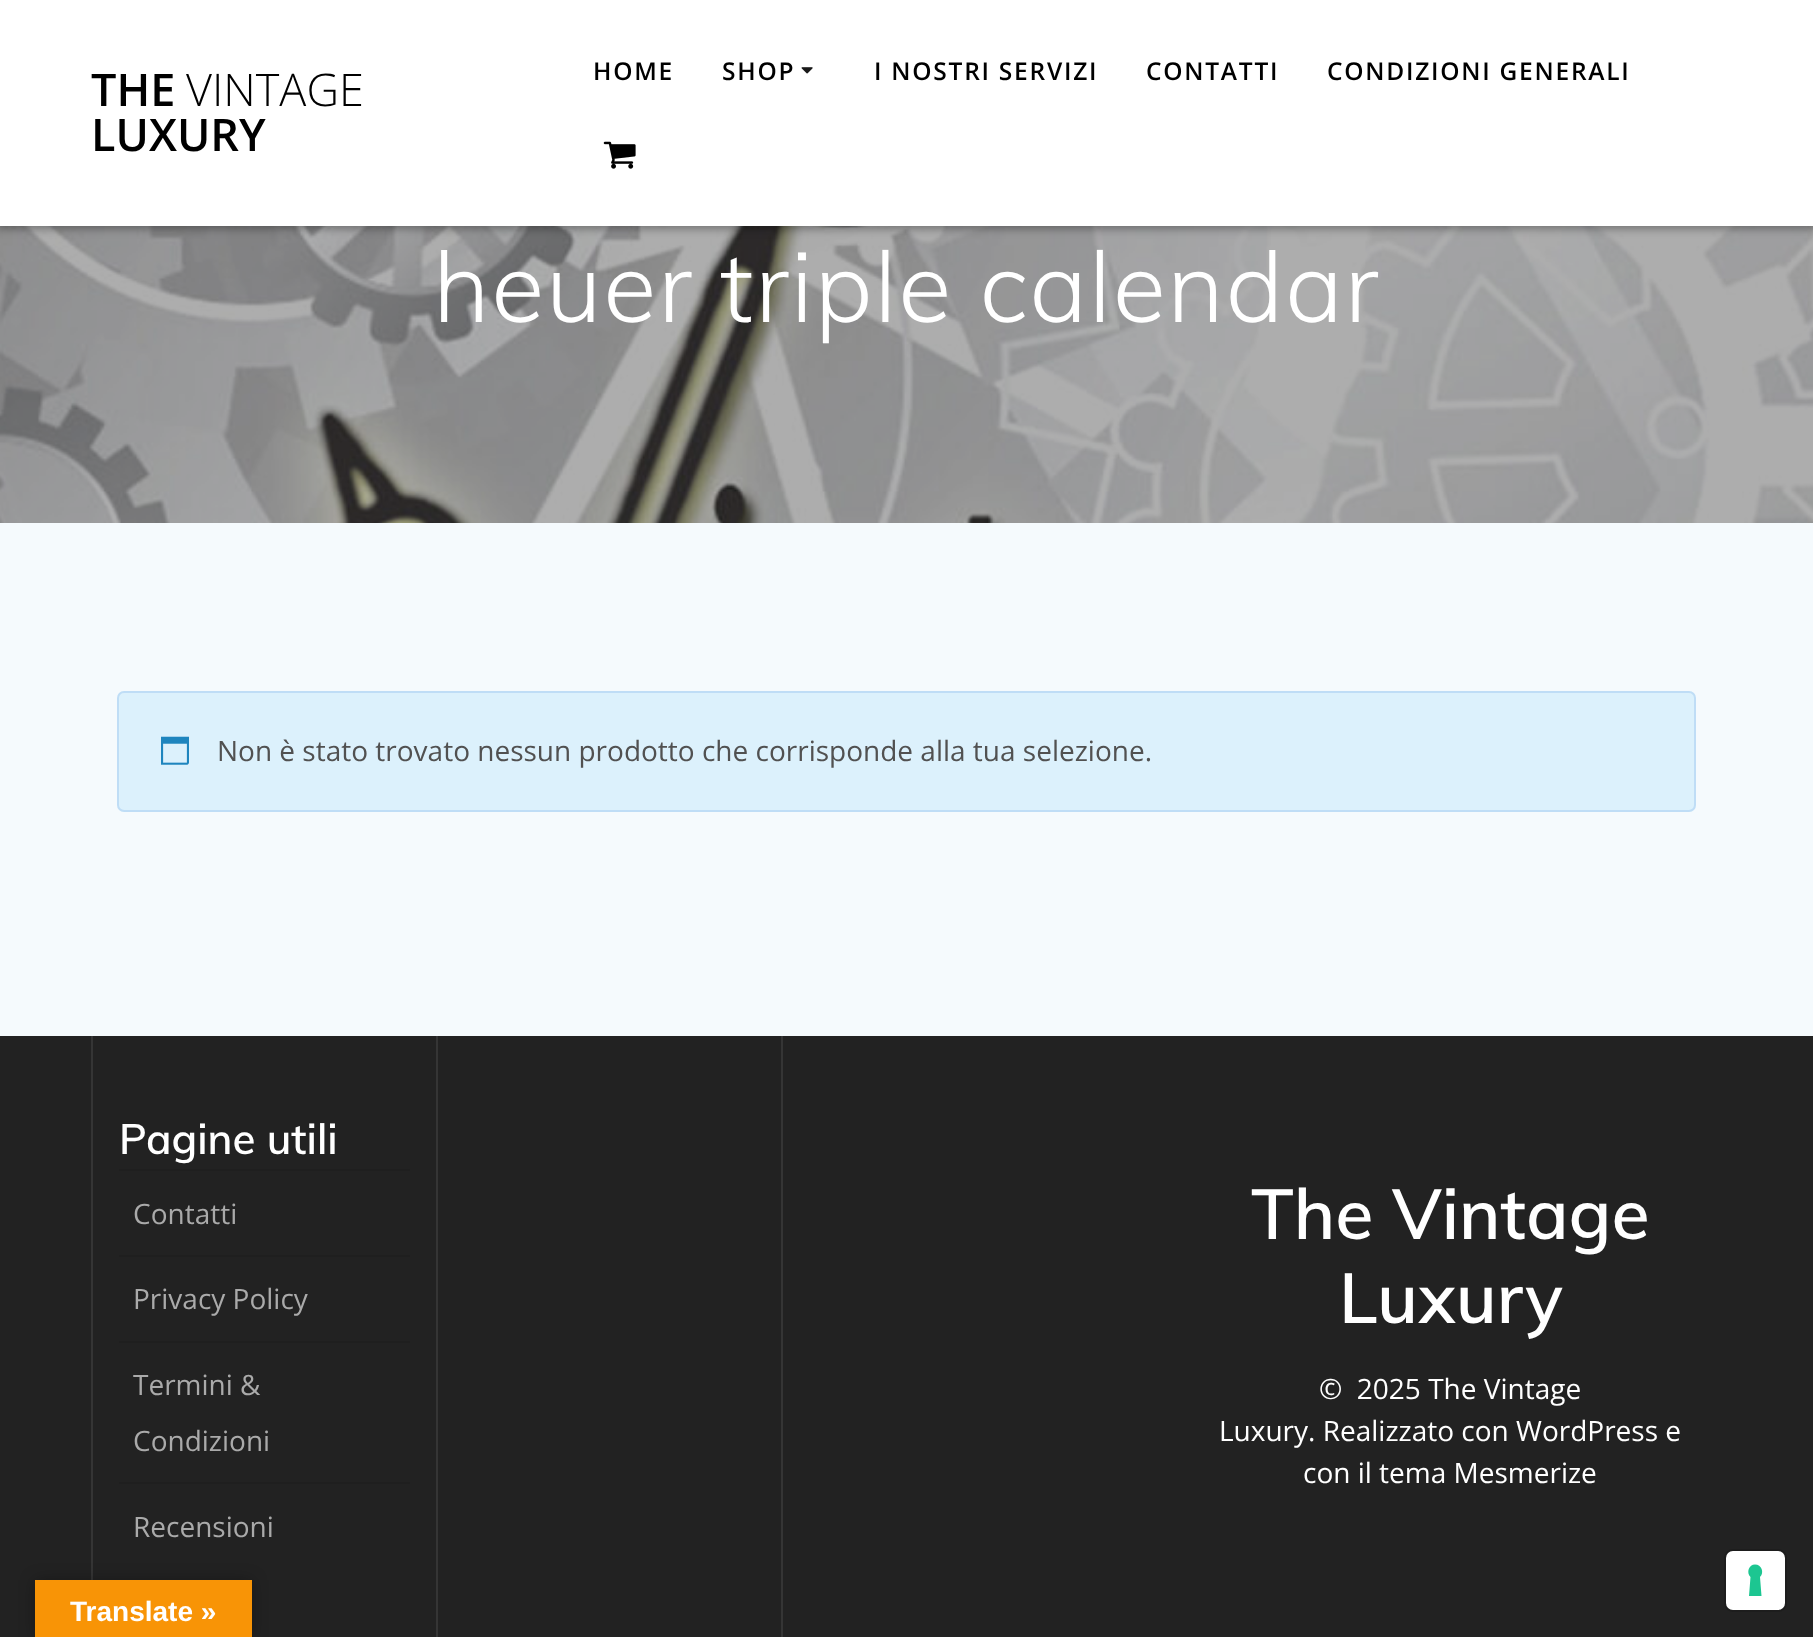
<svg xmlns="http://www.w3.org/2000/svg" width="1813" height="1637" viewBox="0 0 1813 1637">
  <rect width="100%" height="100%" fill="#fff"/>
  <image x="0" y="226" width="1813" height="297" href="img/3.png"/>
  <path d="M-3 -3h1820v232H-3z" fill="#00000054" filter="blur(4.5px)"/>
  <path d="M0 0h1813v226H0z" fill="#fff"/>
  <image x="801" y="67" width="12" height="7" href="img/1.png"/>
  <image x="603" y="141" width="33" height="28" href="img/2.png"/>
  <path d="M0 523h1813v513H0z" fill="#f5fafd"/>
  <rect x="117" y="691" width="1579" height="121" rx="7" fill="#dcf1fc"/>
  <rect x="118" y="692" width="1577" height="119" rx="6" fill="none" stroke="#4a90e233" stroke-width="2"/>
  <image x="161" y="736" width="28" height="29" href="img/4.png"/>
  <path d="M0 1036h1813v601H0z" fill="#222"/>
  <path d="M91 1036h2v544H91z" fill="#353535"/>
  <path d="M119 1169h291v2H119z" fill="#1f1f1f"/>
  <path d="M119 1255h291v2H119z" fill="#1f1f1f"/>
  <path d="M119 1341h291v2H119z" fill="#1f1f1f"/>
  <path d="M119 1482h291v2H119z" fill="#1f1f1f"/>
  <path d="M436 1036h2v601H436z" fill="#353535"/>
  <path d="M781 1036h2v601H781z" fill="#353535"/>
  <path d="M35 1580h217v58H35z" fill="#0000004d" filter="blur(8px)"/>
  <path d="M35 1580h217v57H35z" fill="#f89406"/>
  <rect x="1725" y="1550" width="61" height="61" rx="8" fill="none" stroke="#1d1d1d" stroke-width="2"/>
  <rect x="1726" y="1551" width="59" height="59" rx="7" fill="#fff"/>
  <path d="M1755 1564.5C1761.5 1564.5 1764.5 1572.5 1760 1577L1761.5 1596H1749L1750.5 1577C1746 1572.5 1749 1564.5 1755 1564.5Z" fill="#1cc691" fill-rule="evenodd"/>
  <text x="91" y="106" font-family="Open Sans" font-size="45" font-weight="600" fill="#000">THE</text>
  <text x="186" y="106" font-family="Open Sans" font-size="45" font-weight="300" fill="#000">VINTAGE</text>
  <text x="91" y="151" font-family="Open Sans" font-size="45" font-weight="600" fill="#000">LUXURY</text>
  <g font-family="Open Sans" font-size="24.5" font-weight="600" letter-spacing="1.75" fill="#000">
    <text x="593" y="80">HOME</text>
    <text x="722" y="80">SHOP</text>
    <text x="874" y="80">I NOSTRI SERVIZI</text>
    <text x="1146" y="80">CONTATTI</text>
    <text x="1327" y="80">CONDIZIONI GENERALI</text>
  </g>
  <text x="433" y="322" font-family="Muli" font-size="98" font-weight="300" letter-spacing="1.6" fill="#fff">heuer triple calendar</text>
  <text x="217" y="761" font-family="Open Sans" font-size="28" fill="#515151">Non è stato trovato nessun prodotto che corrisponde alla tua selezione.</text>
  <text x="119" y="1154" font-family="Muli" font-size="42" font-weight="600" fill="#fff">Pagine utili</text>
  <g font-family="Open Sans" font-size="28" fill="#aaa">
    <text x="133" y="1224">Contatti</text>
    <text x="133" y="1309">Privacy Policy</text>
    <text x="133" y="1395">Termini &amp;</text>
    <text x="133" y="1451">Condizioni</text>
    <text x="133" y="1537">Recensioni</text>
  </g>
  <g font-family="Muli" font-size="70" font-weight="600" fill="#fff">
    <text x="1251" y="1239">The Vintage</text>
    <text x="1339" y="1323">Luxury</text>
  </g>
  <g font-family="Open Sans" font-size="28" fill="#fff">
    <text x="1319" y="1399" xml:space="preserve">©  2025 The Vintage</text>
    <text x="1219" y="1441">Luxury. Realizzato con WordPress e</text>
    <text x="1303" y="1483">con il tema Mesmerize</text>
  </g>
  <text x="70" y="1621" font-family="Liberation Sans" font-size="28" font-weight="bold" fill="#fff">Translate »</text>
</svg>
